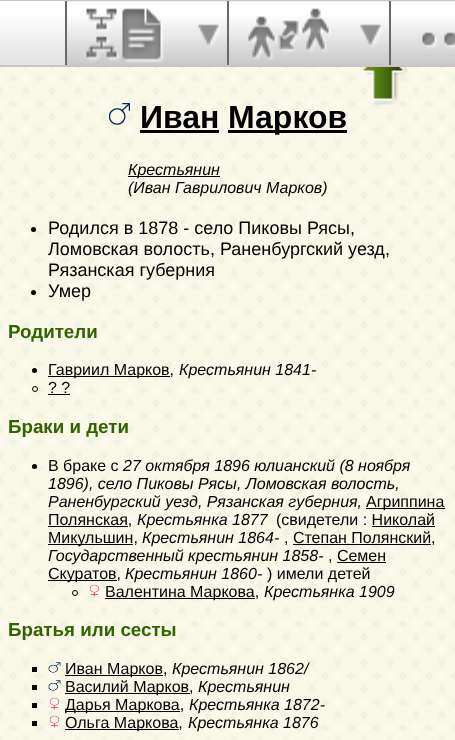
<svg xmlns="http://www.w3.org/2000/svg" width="455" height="740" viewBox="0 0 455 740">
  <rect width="100%" height="100%" fill="#fff"/>
  <image x="0" y="67" width="455" height="673" href="img/1.png"/>
  <image x="67" y="1" width="388" height="64" href="img/2.png"/>
  <path d="M-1 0h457v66H-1z" fill="none" stroke="#cdc3c6" stroke-width="2"/>
  <image x="0" y="1" width="65" height="64" href="img/3.png"/>
  <path d="M65 1h2v64H65z" fill="#696969"/>
  <path d="M227 1h2v64H227z" fill="#696969"/>
  <image x="86" y="8" width="79" height="55" href="img/4.png"/>
  <image x="198" y="24" width="23" height="23" href="img/5.png"/>
  <path d="M389 1h2v64H389z" fill="#696969"/>
  <image x="228" y="8" width="103" height="52" href="img/6.png"/>
  <image x="360" y="24" width="23" height="23" href="img/5.png"/>
  <image x="422" y="32" width="33" height="17" href="img/7.png"/>
  <image x="363" y="67" width="45" height="38" href="img/8.png"/>
  <image x="109" y="103" width="21" height="22" href="img/9.png"/>
  <path d="M140 130h79v3H140z" fill="#000"/>
  <path d="M228 130h119v3H228z" fill="#000"/>
  <path d="M128 176h92v1H128z" fill="#000"/>
  <circle cx="33.5" cy="229.5" r="2.5" fill="#000"/>
  <circle cx="33.5" cy="292.5" r="2.5" fill="#000"/>
  <circle cx="34.5" cy="370.5" r="2.5" fill="#000"/>
  <path d="M48 376h122v1H48z" fill="#000"/>
  <circle cx="35" cy="389" r="2.5" fill="none" stroke="#000"/>
  <path d="M48 394h22v1H48z" fill="#000"/>
  <circle cx="34.5" cy="466.5" r="2.5" fill="#000"/>
  <path d="M366 508h79v1H366z" fill="#000"/>
  <path d="M48 526h80v1H48z" fill="#000"/>
  <path d="M372 526h63v1H372z" fill="#000"/>
  <path d="M48 544h85v1H48z" fill="#000"/>
  <path d="M293 544h138v1H293z" fill="#000"/>
  <path d="M337 562h49v1H337z" fill="#000"/>
  <path d="M48 580h69v1H48z" fill="#000"/>
  <circle cx="75" cy="593" r="2.5" fill="none" stroke="#000"/>
  <image x="89" y="584" width="11" height="13" href="img/10.png"/>
  <path d="M105 598h150v1H105z" fill="#000"/>
  <path d="M32 667h5v5H32z" fill="#000"/>
  <image x="48" y="662" width="13" height="11" href="img/11.png"/>
  <path d="M65 675h98v1H65z" fill="#000"/>
  <path d="M32 685h5v5H32z" fill="#000"/>
  <image x="48" y="680" width="13" height="11" href="img/12.png"/>
  <path d="M65 693h125v1H65z" fill="#000"/>
  <path d="M32 703h5v5H32z" fill="#000"/>
  <image x="49" y="697" width="11" height="13" href="img/13.png"/>
  <path d="M65 711h115v1H65z" fill="#000"/>
  <path d="M32 721h5v5H32z" fill="#000"/>
  <image x="49" y="715" width="11" height="13" href="img/14.png"/>
  <path d="M65 729h114v1H65z" fill="#000"/>
  <g font-family="Liberation Sans" font-size="32" font-weight="bold" fill="#000">
    <text x="140" y="128">Иван</text>
    <text x="228" y="128">Марков</text>
  </g>
  <g font-family="Liberation Sans" font-size="16" font-style="italic" fill="#000">
    <text x="128" y="175">Крестьянин</text>
    <text x="128" y="193">(Иван Гаврилович Марков)</text>
  </g>
  <g font-family="Liberation Sans" font-size="18" fill="#000">
    <text x="48" y="234">Родился в 1878 - село Пиковы Рясы,</text>
    <text x="48" y="255">Ломовская волость, Раненбургский уезд,</text>
    <text x="48" y="276">Рязанская губерния</text>
    <text x="48" y="297">Умер</text>
  </g>
  <text x="8" y="338" font-family="Liberation Sans" font-size="18.75" font-weight="bold" fill="#2f6400">Родители</text>
  <text x="48" y="375" font-family="Liberation Sans" font-size="16" fill="#000">Гавриил Марков,</text>
  <text x="179" y="375" font-family="Liberation Sans" font-size="16" font-style="italic" fill="#000">Крестьянин 1841-</text>
  <text x="48" y="393" font-family="Liberation Sans" font-size="16" fill="#000">? ?</text>
  <text x="8" y="433" font-family="Liberation Sans" font-size="18.75" font-weight="bold" fill="#2f6400">Браки и дети</text>
  <text x="48" y="471" font-family="Liberation Sans" font-size="16" fill="#000">В браке с</text>
  <g font-family="Liberation Sans" font-size="16" font-style="italic" fill="#000">
    <text x="123" y="471">27 октября 1896 юлианский (8 ноября</text>
    <text x="48" y="489">1896), село Пиковы Рясы, Ломовская волость,</text>
    <text x="48" y="507">Раненбургский уезд, Рязанская губерния,</text>
  </g>
  <g font-family="Liberation Sans" font-size="16" fill="#000">
    <text x="366" y="507">Агриппина</text>
    <text x="48" y="525">Полянская,</text>
  </g>
  <text x="137" y="525" font-family="Liberation Sans" font-size="16" font-style="italic" fill="#000">Крестьянка 1877</text>
  <g font-family="Liberation Sans" font-size="16" fill="#000">
    <text x="276" y="525">(свидетели : Николай</text>
    <text x="48" y="543">Микульшин,</text>
  </g>
  <text x="142" y="543" font-family="Liberation Sans" font-size="16" font-style="italic" fill="#000">Крестьянин 1864-</text>
  <text x="284" y="543" font-family="Liberation Sans" font-size="16" fill="#000">, Степан Полянский,</text>
  <text x="48" y="561" font-family="Liberation Sans" font-size="16" font-style="italic" fill="#000">Государственный крестьянин 1858-</text>
  <g font-family="Liberation Sans" font-size="16" fill="#000">
    <text x="328" y="561">, Семен</text>
    <text x="48" y="579">Скуратов,</text>
  </g>
  <text x="125" y="579" font-family="Liberation Sans" font-size="16" font-style="italic" fill="#000">Крестьянин 1860-</text>
  <g font-family="Liberation Sans" font-size="16" fill="#000">
    <text x="267" y="579">) имели детей</text>
    <text x="105" y="597">Валентина Маркова,</text>
  </g>
  <text x="264" y="597" font-family="Liberation Sans" font-size="16" font-style="italic" fill="#000">Крестьянка 1909</text>
  <text x="8" y="636" font-family="Liberation Sans" font-size="18.75" font-weight="bold" fill="#2f6400">Братья или сесты</text>
  <text x="65" y="674" font-family="Liberation Sans" font-size="16" fill="#000">Иван Марков,</text>
  <text x="172" y="674" font-family="Liberation Sans" font-size="16" font-style="italic" fill="#000">Крестьянин 1862/</text>
  <text x="65" y="692" font-family="Liberation Sans" font-size="16" fill="#000">Василий Марков,</text>
  <text x="198" y="692" font-family="Liberation Sans" font-size="16" font-style="italic" fill="#000">Крестьянин</text>
  <text x="65" y="710" font-family="Liberation Sans" font-size="16" fill="#000">Дарья Маркова,</text>
  <text x="189" y="710" font-family="Liberation Sans" font-size="16" font-style="italic" fill="#000">Крестьянка 1872-</text>
  <text x="65" y="728" font-family="Liberation Sans" font-size="16" fill="#000">Ольга Маркова,</text>
  <text x="188" y="728" font-family="Liberation Sans" font-size="16" font-style="italic" fill="#000">Крестьянка 1876</text>
</svg>
